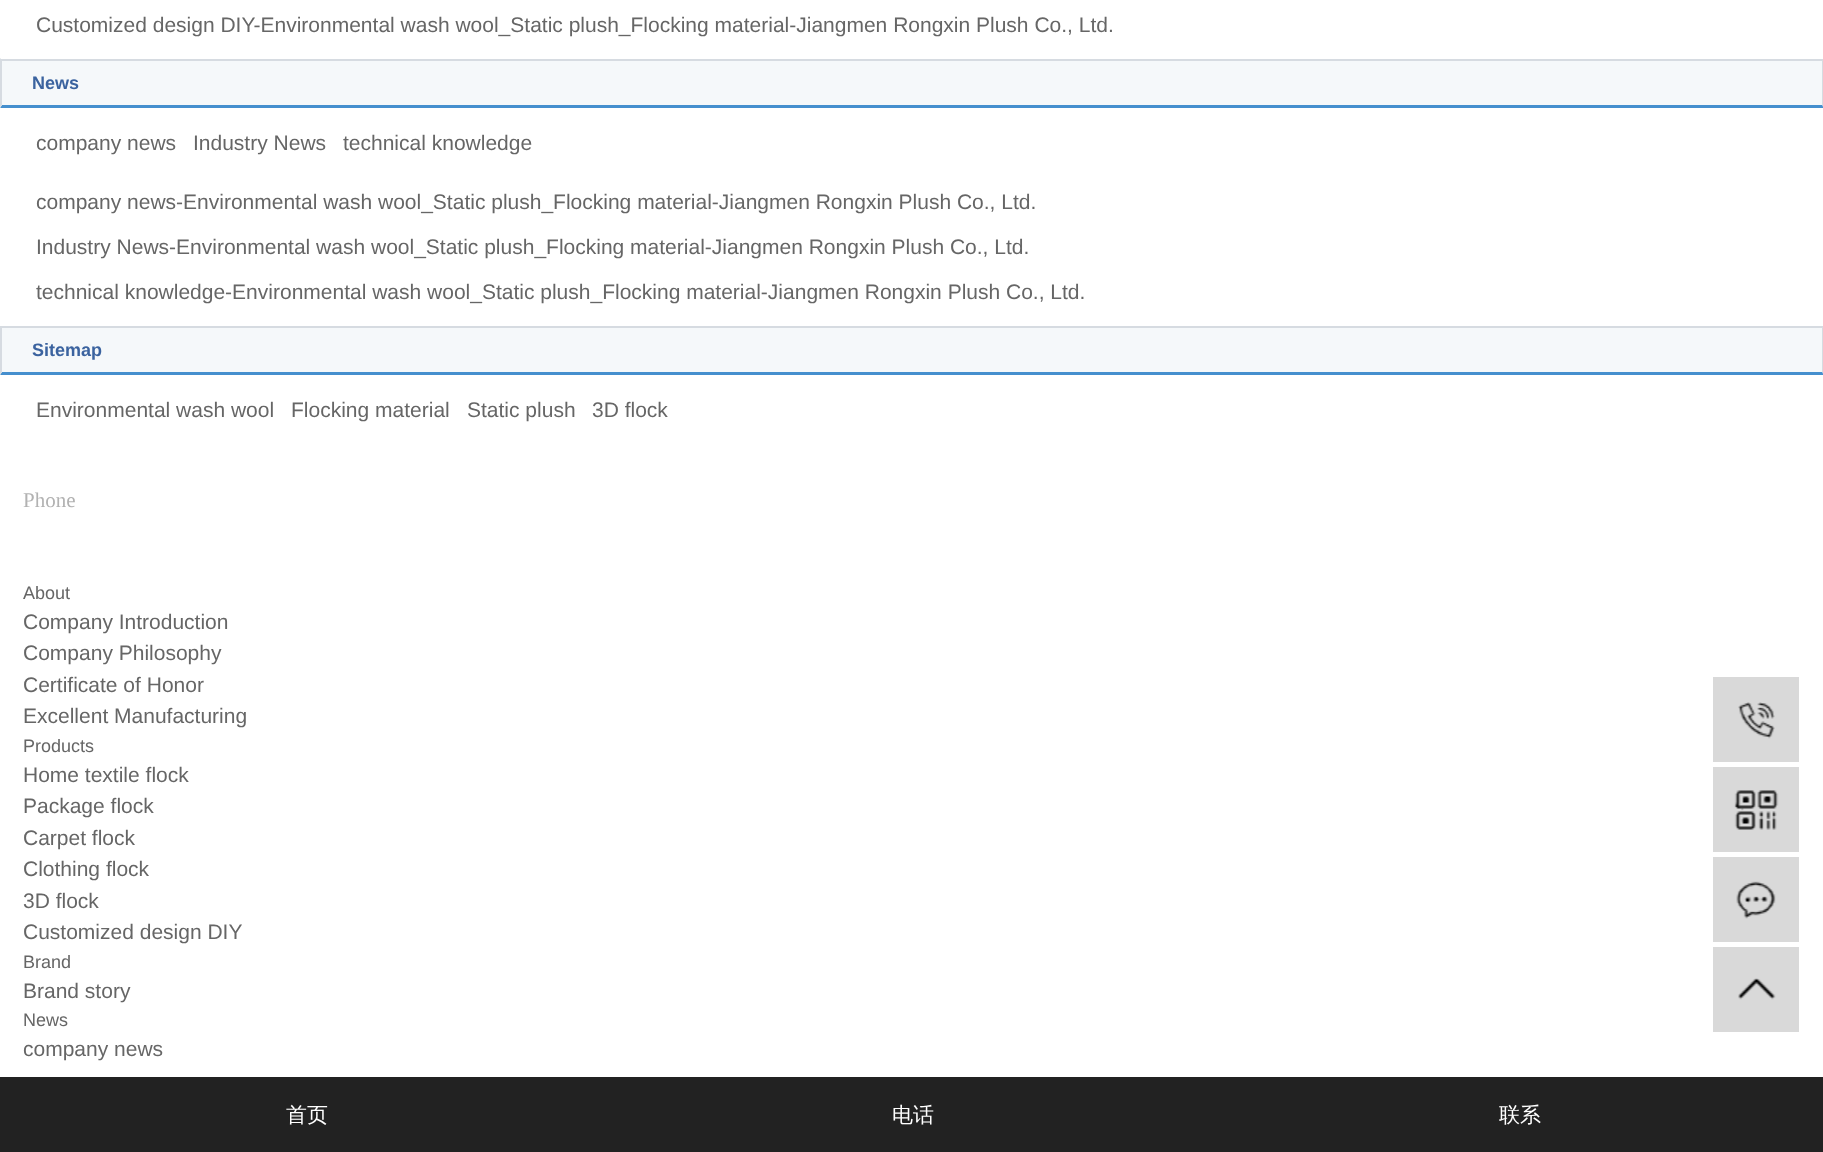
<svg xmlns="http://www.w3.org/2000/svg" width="1823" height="1152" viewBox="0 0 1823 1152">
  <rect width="100%" height="100%" fill="#fff"/>
  <path d="M2 61h1820v44H2z" fill="#f5f8fa"/>
  <path d="M0 59h1823v2H0z" fill="#d6dbe1"/>
  <path d="M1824 58V108L1822 105V60Z" fill="#d6dbe1"/>
  <path d="M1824 108H0L2 105H1822Z" fill="#458fce"/>
  <path d="M0 108V58L2 60V105Z" fill="#d6dbe1"/>
  <path d="M2 328h1820v44H2z" fill="#f5f8fa"/>
  <path d="M0 326h1823v2H0z" fill="#d6dbe1"/>
  <path d="M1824 326V375L1822 372V327Z" fill="#d6dbe1"/>
  <path d="M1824 375H0L2 372H1822Z" fill="#458fce"/>
  <path d="M0 375V326L2 327V372Z" fill="#d6dbe1"/>
  <path d="M1713 677h86v85H1713z" fill="#d9d9d9"/>
  <image x="1738" y="702" width="37" height="37" href="img/1.png"/>
  <path d="M1713 767h86v85H1713z" fill="#d9d9d9"/>
  <image x="1734" y="790" width="45" height="40" href="img/2.png"/>
  <path d="M1713 857h86v85H1713z" fill="#d9d9d9"/>
  <image x="1736" y="881" width="40" height="38" href="img/3.png"/>
  <path d="M1713 947h86v85H1713z" fill="#d9d9d9"/>
  <image x="1738" y="978" width="38" height="22" href="img/4.png"/>
  <path d="M0 1077h1823v75H0z" fill="#222"/>
  <text x="36" y="32" font-family="Liberation Sans" font-size="21" fill="#666">Customized design DIY-Environmental wash wool_Static plush_Flocking material-Jiangmen Rongxin Plush Co., Ltd.</text>
  <text x="32" y="89" font-family="Liberation Sans" font-size="18" font-weight="bold" fill="#3b639f">News</text>
  <g font-family="Liberation Sans" font-size="21" fill="#666">
    <text x="36" y="150">company news</text>
    <text x="193" y="150">Industry News</text>
    <text x="343" y="150">technical knowledge</text>
    <text x="36" y="209">company news-Environmental wash wool_Static plush_Flocking material-Jiangmen Rongxin Plush Co., Ltd.</text>
    <text x="36" y="254">Industry News-Environmental wash wool_Static plush_Flocking material-Jiangmen Rongxin Plush Co., Ltd.</text>
    <text x="36" y="299">technical knowledge-Environmental wash wool_Static plush_Flocking material-Jiangmen Rongxin Plush Co., Ltd.</text>
  </g>
  <text x="32" y="356" font-family="Liberation Sans" font-size="18" font-weight="bold" fill="#3b639f">Sitemap</text>
  <g font-family="Liberation Sans" font-size="21" fill="#666">
    <text x="36" y="417">Environmental wash wool</text>
    <text x="291" y="417">Flocking material</text>
    <text x="467" y="417">Static plush</text>
    <text x="592" y="417">3D flock</text>
  </g>
  <text x="23" y="507" font-family="Liberation Serif" font-size="21" fill="#b2b2b2">Phone</text>
  <text x="23" y="599" font-family="Liberation Sans" font-size="18" fill="#666">About</text>
  <g font-family="Liberation Sans" font-size="21" fill="#666">
    <text x="23" y="629">Company Introduction</text>
    <text x="23" y="660">Company Philosophy</text>
    <text x="23" y="692">Certificate of Honor</text>
    <text x="23" y="723">Excellent Manufacturing</text>
  </g>
  <text x="23" y="752" font-family="Liberation Sans" font-size="18" fill="#666">Products</text>
  <g font-family="Liberation Sans" font-size="21" fill="#666">
    <text x="23" y="782">Home textile flock</text>
    <text x="23" y="813">Package flock</text>
    <text x="23" y="845">Carpet flock</text>
    <text x="23" y="876">Clothing flock</text>
    <text x="23" y="908">3D flock</text>
    <text x="23" y="939">Customized design DIY</text>
  </g>
  <text x="23" y="968" font-family="Liberation Sans" font-size="18" fill="#666">Brand</text>
  <text x="23" y="998" font-family="Liberation Sans" font-size="21" fill="#666">Brand story</text>
  <text x="23" y="1026" font-family="Liberation Sans" font-size="18" fill="#666">News</text>
  <text x="23" y="1056" font-family="Liberation Sans" font-size="21" fill="#666">company news</text>
  <g font-family="WenQuanYi Zen Hei" font-size="21" font-weight="500" fill="#fff">
    <text x="286" y="1122">首页</text>
    <text x="892" y="1122">电话</text>
    <text x="1499" y="1122">联系</text>
  </g>
</svg>
